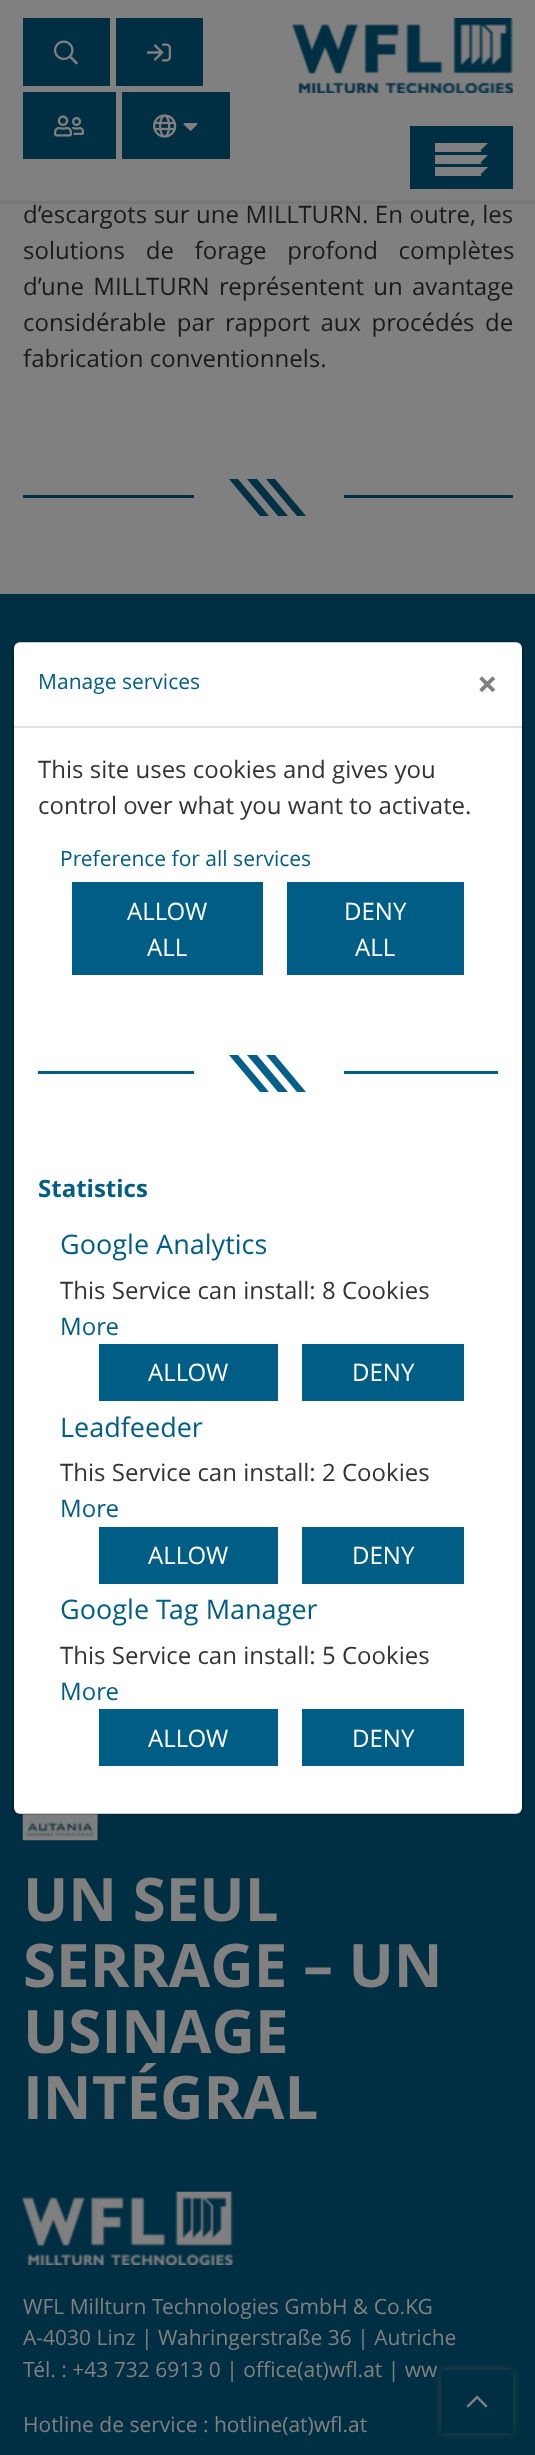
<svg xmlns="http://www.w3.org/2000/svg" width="535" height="2455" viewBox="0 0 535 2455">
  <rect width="100%" height="100%" fill="#808080"/>
  <path d="M0 201h535v3H0z" fill="#787878"/>
  <path d="M23 18h87v68H23z" fill="#002f43"/>
  <image x="54" y="40" width="24" height="25" href="img/1.png"/>
  <path d="M116 18h87v68H116z" fill="#002f43"/>
  <image x="147" y="43" width="24" height="19" href="img/2.png"/>
  <path d="M23 92h93v67H23z" fill="#002f43"/>
  <image x="54" y="115" width="30" height="22" href="img/3.png"/>
  <path d="M122 92h108v67H122z" fill="#002f43"/>
  <image x="153" y="114" width="24" height="24" href="img/4.png"/>
  <image x="183" y="123" width="15" height="8" href="img/5.png"/>
  <image x="292" y="18" width="221" height="75" href="img/6.png"/>
  <path d="M410 126h103v63H410z" fill="#002f43"/>
  <path d="M435 143h53v9H435z" fill="#808080"/>
  <path d="M480.5 150.5L492 139L496 143.5L484.5 155Z" fill="#002f43"/>
  <path d="M435 155h53v9H435z" fill="#808080"/>
  <path d="M480.5 162.5L492 151L496 155.5L484.5 167Z" fill="#002f43"/>
  <path d="M435 167h53v9H435z" fill="#808080"/>
  <path d="M480.5 174.5L492 163L496 167.5L484.5 179Z" fill="#002f43"/>
  <path d="M23 495h490v3H23z" fill="#002f43"/>
  <path d="M194 495h150v3H194z" fill="#808080"/>
  <path d="M229 479H238L269 516H260ZM247 479H257L288 516H278ZM266 479H275L306 516H297Z" fill="#023044"/>
  <path d="M0 594h535v1861H0z" fill="#002f43"/>
  <image x="22" y="1814" width="76" height="27" href="img/7.png"/>
  <image x="22" y="2191" width="211" height="74" href="img/8.png"/>
  <path d="M441 2370h72v63H441z" fill="#4b4b4bbf" filter="blur(4px)"/>
  <path d="M441 2370h72v63H441z" fill="#002f43"/>
  <image x="466" y="2395" width="22" height="13" href="img/9.png"/>
  <rect x="14" y="642" width="508" height="1172" rx="6" fill="#fff"/>
  <rect x="13" y="642" width="510" height="1172" rx="7" fill="none" stroke="#00000033" stroke-width="2"/>
  <path d="M14 726h508v2H14z" fill="#dee2e6"/>
  <path d="M72 882h191v93H72z" fill="#005e86"/>
  <path d="M287 882h177v93H287z" fill="#005e86"/>
  <path d="M38 1071h460v3H38z" fill="#005e86"/>
  <path d="M194 1071h150v3H194z" fill="#fff"/>
  <path d="M229 1055H238L269 1092H260ZM247 1055H257L288 1092H278ZM266 1055H275L306 1092H297Z" fill="#046088"/>
  <path d="M99 1344h179v57H99z" fill="#005e86"/>
  <path d="M302 1344h162v57H302z" fill="#005e86"/>
  <path d="M99 1527h179v57H99z" fill="#005e86"/>
  <path d="M302 1527h162v57H302z" fill="#005e86"/>
  <path d="M99 1709h179v57H99z" fill="#005e86"/>
  <path d="M302 1709h162v57H302z" fill="#005e86"/>
  <g font-family="Open Sans" font-size="24" fill="#1a1a1a">
    <text x="23" y="223" word-spacing="0.25">d’escargots sur une MILLTURN. En outre, les</text>
    <text x="23" y="259" word-spacing="14.5">solutions de forage profond complètes</text>
    <text x="23" y="295" word-spacing="3">d’une MILLTURN représentent un avantage</text>
    <text x="23" y="331" word-spacing="4.25">considérable par rapport aux procédés de</text>
    <text x="23" y="367">fabrication conventionnels.</text>
  </g>
  <g font-family="Open Sans" font-size="60" font-weight="bold" fill="#808080">
    <text x="23" y="1921">UN SEUL</text>
    <text x="23" y="1987">SERRAGE – UN</text>
    <text x="23" y="2053">USINAGE</text>
    <text x="23" y="2119">INTÉGRAL</text>
  </g>
  <g font-family="Open Sans" font-size="21" fill="#808080">
    <text x="23" y="2314">WFL Millturn Technologies GmbH &amp; Co.KG</text>
    <text x="23" y="2345">A-4030 Linz | Wahringerstraße 36 | Autriche</text>
    <text x="23" y="2377">Tél. : +43 732 6913 0 | office(at)wfl.at | ww</text>
    <text x="23" y="2432">Hotline de service : hotline(at)wfl.at</text>
  </g>
  <text x="38" y="689" font-family="Open Sans" font-size="21" fill="#005e86">Manage services</text>
  <text x="477" y="697" font-family="Open Sans" font-size="36" font-weight="bold" fill="#808080">×</text>
  <g font-family="Open Sans" font-size="24" fill="#333">
    <text x="38" y="778">This site uses cookies and gives you</text>
    <text x="38" y="814">control over what you want to activate.</text>
  </g>
  <text x="60" y="866" font-family="Open Sans" font-size="21" fill="#005e86">Preference for all services</text>
  <g font-family="Open Sans" font-size="24" fill="#fff">
    <text x="127" y="920">ALLOW</text>
    <text x="147" y="956">ALL</text>
    <text x="344" y="920">DENY</text>
    <text x="355" y="956">ALL</text>
  </g>
  <text x="38" y="1197" font-family="Open Sans" font-size="24" font-weight="bold" fill="#005e86">Statistics</text>
  <text x="60" y="1254" font-family="Open Sans" font-size="27" fill="#005e86">Google Analytics</text>
  <text x="60" y="1299" font-family="Open Sans" font-size="24" fill="#333">This Service can install: 8 Cookies</text>
  <text x="60" y="1335" font-family="Open Sans" font-size="24" fill="#005e86">More</text>
  <g font-family="Open Sans" font-size="24" fill="#fff">
    <text x="148" y="1381">ALLOW</text>
    <text x="352" y="1381">DENY</text>
  </g>
  <text x="60" y="1437" font-family="Open Sans" font-size="27" fill="#005e86">Leadfeeder</text>
  <text x="60" y="1481" font-family="Open Sans" font-size="24" fill="#333">This Service can install: 2 Cookies</text>
  <text x="60" y="1517" font-family="Open Sans" font-size="24" fill="#005e86">More</text>
  <g font-family="Open Sans" font-size="24" fill="#fff">
    <text x="148" y="1564">ALLOW</text>
    <text x="352" y="1564">DENY</text>
  </g>
  <text x="60" y="1619" font-family="Open Sans" font-size="27" fill="#005e86">Google Tag Manager</text>
  <text x="60" y="1664" font-family="Open Sans" font-size="24" fill="#333">This Service can install: 5 Cookies</text>
  <text x="60" y="1700" font-family="Open Sans" font-size="24" fill="#005e86">More</text>
  <g font-family="Open Sans" font-size="24" fill="#fff">
    <text x="148" y="1747">ALLOW</text>
    <text x="352" y="1747">DENY</text>
  </g>
</svg>
